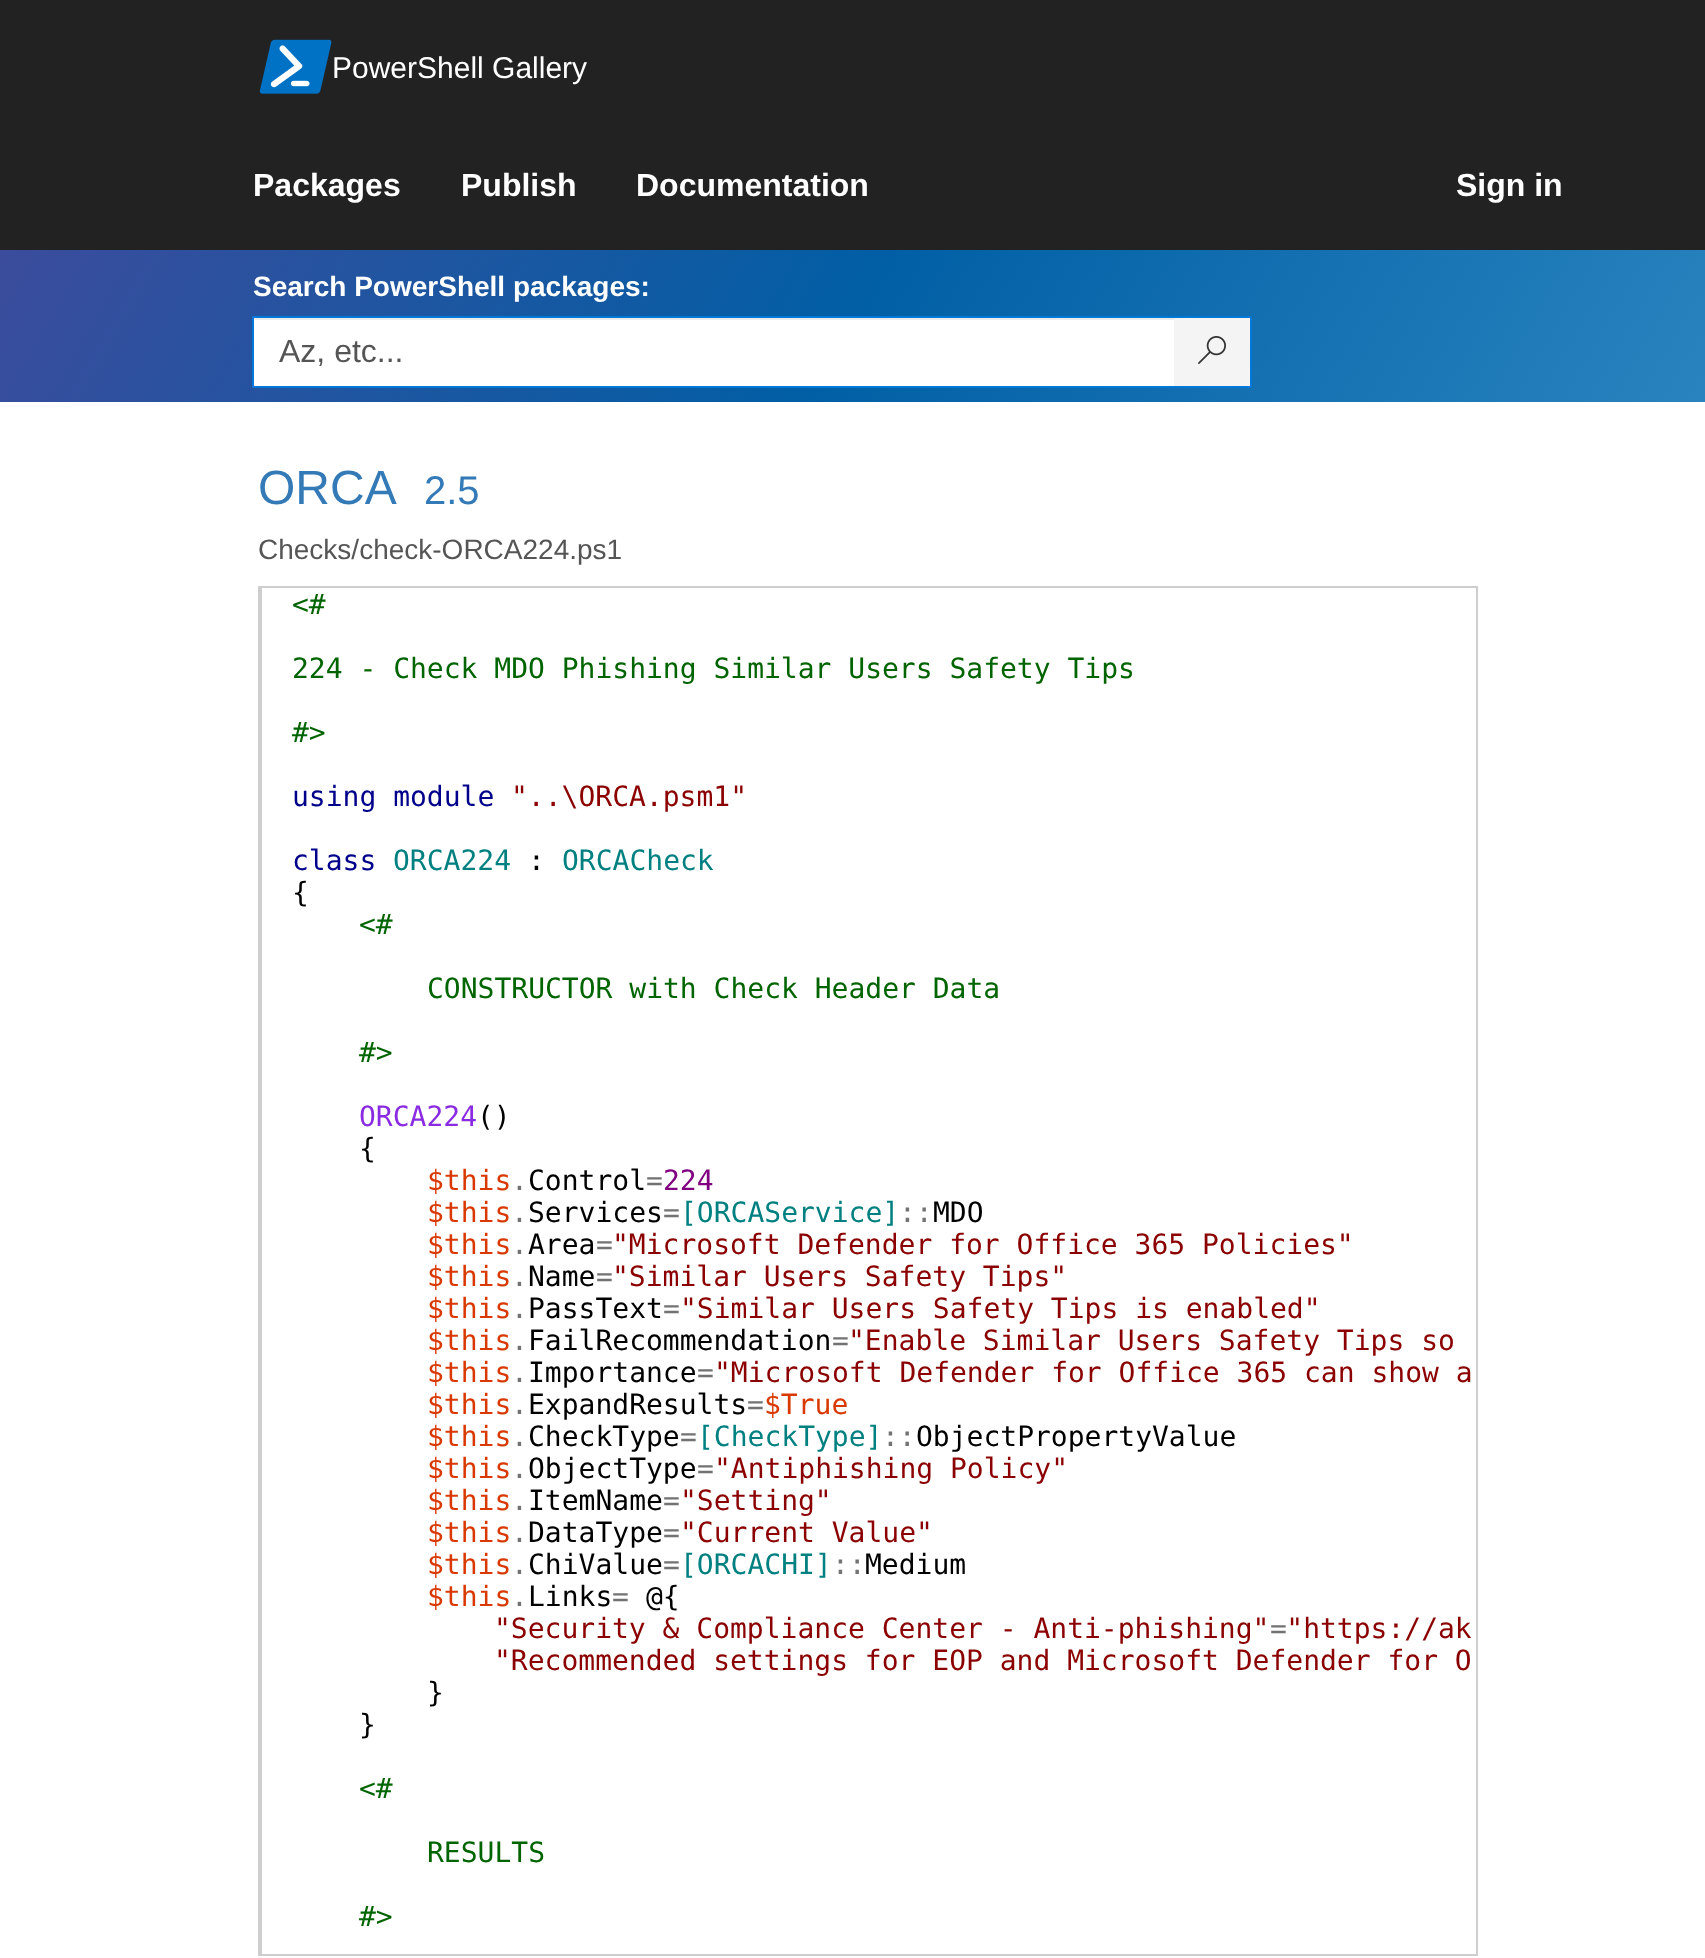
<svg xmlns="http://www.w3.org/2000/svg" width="1705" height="1958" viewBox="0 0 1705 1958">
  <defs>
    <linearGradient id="g1" gradientUnits="userSpaceOnUse" x1="180" y1="-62" x2="1526" y2="714"><stop offset="0" stop-color="#3b4c9c"/><stop offset="0.5" stop-color="#015fa5"/><stop offset="1" stop-color="#2983be"/></linearGradient>
  </defs>
  <rect width="100%" height="100%" fill="#fff"/>
  <path d="M0 0h1705v250H0z" fill="#222"/>
  <image x="259" y="39" width="73" height="55" href="img/1.png"/>
  <path d="M0 250h1705v152H0z" fill="url(#g1)"/>
  <path d="M254 320h920v66H254z" fill="#fff"/>
  <path d="M254 318h922v2H254z" fill="#ececec"/>
  <path d="M252 316h1000v2H252z" fill="#0078d7"/>
  <path d="M252 386h924v2H252z" fill="#0078d7"/>
  <path d="M252 316h2v72H252z" fill="#0078d7"/>
  <path d="M1174 318h76v68H1174z" fill="#f4f4f4"/>
  <path d="M1250 316h2v72H1250z" fill="#0078d7"/>
  <path d="M1174 386h78v2H1174z" fill="#0078d7"/>
  <image x="1198" y="336" width="28" height="28" href="img/2.png"/>
  <path d="M259 587h1218v1368H259z" fill="none" stroke="#cecece" stroke-width="2"/>
  <path d="M260 588h2v1366H260z" fill="#cecece"/>
  <text x="332" y="78" font-family="Liberation Sans" font-size="30" fill="#fff">PowerShell Gallery</text>
  <g font-family="Liberation Sans" font-size="32" font-weight="bold" fill="#fff">
    <text x="253" y="196">Packages</text>
    <text x="461" y="196">Publish</text>
    <text x="636" y="196">Documentation</text>
    <text x="1456" y="196">Sign in</text>
  </g>
  <text x="253" y="296" font-family="Liberation Sans" font-size="28" font-weight="bold" fill="#fff">Search PowerShell packages:</text>
  <text x="279" y="362" font-family="Liberation Sans" font-size="32" fill="#555">Az, etc...</text>
  <text x="258" y="504" font-family="Liberation Sans" font-size="48" fill="#337ab7">ORCA</text>
  <text x="424" y="504" font-family="Liberation Sans" font-size="40" fill="#337ab7">2.5</text>
  <text x="258" y="559" font-family="Liberation Sans" font-size="28" fill="#555">Checks/check-ORCA224.ps1</text>
  <g font-family="DejaVu Sans Mono" font-size="28" fill="#006400">
    <text x="292" y="614">&lt;#</text>
    <text x="292" y="678">224 - Check MDO Phishing Similar Users Safety Tips</text>
    <text x="292" y="742">#&gt;</text>
  </g>
  <text x="292" y="806" font-family="DejaVu Sans Mono" font-size="28" fill="#00008b">using module</text>
  <text x="511" y="806" font-family="DejaVu Sans Mono" font-size="28" fill="#8b0000">"..\ORCA.psm1"</text>
  <text x="292" y="870" font-family="DejaVu Sans Mono" font-size="28" fill="#00008b">class</text>
  <text x="393" y="870" font-family="DejaVu Sans Mono" font-size="28" fill="#008080">ORCA224</text>
  <text x="528" y="870" font-family="DejaVu Sans Mono" font-size="28" fill="#000">:</text>
  <text x="562" y="870" font-family="DejaVu Sans Mono" font-size="28" fill="#008080">ORCACheck</text>
  <text x="292" y="902" font-family="DejaVu Sans Mono" font-size="28" fill="#000">{</text>
  <g font-family="DejaVu Sans Mono" font-size="28" fill="#006400">
    <text x="359" y="934">&lt;#</text>
    <text x="427" y="998">CONSTRUCTOR with Check Header Data</text>
    <text x="359" y="1062">#&gt;</text>
  </g>
  <text x="359" y="1126" font-family="DejaVu Sans Mono" font-size="28" fill="#8a2be2">ORCA224</text>
  <g font-family="DejaVu Sans Mono" font-size="28" fill="#000">
    <text x="477" y="1126">()</text>
    <text x="359" y="1158">{</text>
  </g>
  <text x="427" y="1190" font-family="DejaVu Sans Mono" font-size="28" fill="#d93900">$this</text>
  <text x="528" y="1190" font-family="DejaVu Sans Mono" font-size="28" fill="#000">Control</text>
  <text x="646" y="1190" font-family="DejaVu Sans Mono" font-size="28" fill="#737373">=</text>
  <text x="663" y="1190" font-family="DejaVu Sans Mono" font-size="28" fill="#800080">224</text>
  <text x="511" y="1190" font-family="DejaVu Sans Mono" font-size="28" fill="#737373">.</text>
  <text x="427" y="1222" font-family="DejaVu Sans Mono" font-size="28" fill="#d93900">$this</text>
  <text x="528" y="1222" font-family="DejaVu Sans Mono" font-size="28" fill="#000">Services</text>
  <text x="663" y="1222" font-family="DejaVu Sans Mono" font-size="28" fill="#737373">=</text>
  <text x="680" y="1222" font-family="DejaVu Sans Mono" font-size="28" fill="#008080">[ORCAService]</text>
  <text x="899" y="1222" font-family="DejaVu Sans Mono" font-size="28" fill="#737373">::</text>
  <text x="933" y="1222" font-family="DejaVu Sans Mono" font-size="28" fill="#000">MDO</text>
  <text x="511" y="1222" font-family="DejaVu Sans Mono" font-size="28" fill="#737373">.</text>
  <text x="427" y="1254" font-family="DejaVu Sans Mono" font-size="28" fill="#d93900">$this</text>
  <text x="528" y="1254" font-family="DejaVu Sans Mono" font-size="28" fill="#000">Area</text>
  <text x="596" y="1254" font-family="DejaVu Sans Mono" font-size="28" fill="#737373">=</text>
  <text x="612" y="1254" font-family="DejaVu Sans Mono" font-size="28" fill="#8b0000">"Microsoft Defender for Office 365 Policies"</text>
  <text x="511" y="1254" font-family="DejaVu Sans Mono" font-size="28" fill="#737373">.</text>
  <text x="427" y="1286" font-family="DejaVu Sans Mono" font-size="28" fill="#d93900">$this</text>
  <text x="528" y="1286" font-family="DejaVu Sans Mono" font-size="28" fill="#000">Name</text>
  <text x="596" y="1286" font-family="DejaVu Sans Mono" font-size="28" fill="#737373">=</text>
  <text x="612" y="1286" font-family="DejaVu Sans Mono" font-size="28" fill="#8b0000">"Similar Users Safety Tips"</text>
  <text x="511" y="1286" font-family="DejaVu Sans Mono" font-size="28" fill="#737373">.</text>
  <text x="427" y="1318" font-family="DejaVu Sans Mono" font-size="28" fill="#d93900">$this</text>
  <text x="528" y="1318" font-family="DejaVu Sans Mono" font-size="28" fill="#000">PassText</text>
  <text x="663" y="1318" font-family="DejaVu Sans Mono" font-size="28" fill="#737373">=</text>
  <text x="680" y="1318" font-family="DejaVu Sans Mono" font-size="28" fill="#8b0000">"Similar Users Safety Tips is enabled"</text>
  <text x="511" y="1318" font-family="DejaVu Sans Mono" font-size="28" fill="#737373">.</text>
  <text x="427" y="1350" font-family="DejaVu Sans Mono" font-size="28" fill="#d93900">$this</text>
  <text x="528" y="1350" font-family="DejaVu Sans Mono" font-size="28" fill="#000">FailRecommendation</text>
  <text x="832" y="1350" font-family="DejaVu Sans Mono" font-size="28" fill="#737373">=</text>
  <text x="848" y="1350" font-family="DejaVu Sans Mono" font-size="28" fill="#8b0000">"Enable Similar Users Safety Tips so</text>
  <text x="511" y="1350" font-family="DejaVu Sans Mono" font-size="28" fill="#737373">.</text>
  <text x="427" y="1382" font-family="DejaVu Sans Mono" font-size="28" fill="#d93900">$this</text>
  <text x="528" y="1382" font-family="DejaVu Sans Mono" font-size="28" fill="#000">Importance</text>
  <text x="697" y="1382" font-family="DejaVu Sans Mono" font-size="28" fill="#737373">=</text>
  <text x="714" y="1382" font-family="DejaVu Sans Mono" font-size="28" fill="#8b0000">"Microsoft Defender for Office 365 can show a</text>
  <text x="511" y="1382" font-family="DejaVu Sans Mono" font-size="28" fill="#737373">.</text>
  <text x="427" y="1414" font-family="DejaVu Sans Mono" font-size="28" fill="#d93900">$this</text>
  <text x="528" y="1414" font-family="DejaVu Sans Mono" font-size="28" fill="#000">ExpandResults</text>
  <text x="747" y="1414" font-family="DejaVu Sans Mono" font-size="28" fill="#737373">=</text>
  <text x="764" y="1414" font-family="DejaVu Sans Mono" font-size="28" fill="#d93900">$True</text>
  <text x="511" y="1414" font-family="DejaVu Sans Mono" font-size="28" fill="#737373">.</text>
  <text x="427" y="1446" font-family="DejaVu Sans Mono" font-size="28" fill="#d93900">$this</text>
  <text x="528" y="1446" font-family="DejaVu Sans Mono" font-size="28" fill="#000">CheckType</text>
  <text x="680" y="1446" font-family="DejaVu Sans Mono" font-size="28" fill="#737373">=</text>
  <text x="697" y="1446" font-family="DejaVu Sans Mono" font-size="28" fill="#008080">[CheckType]</text>
  <text x="882" y="1446" font-family="DejaVu Sans Mono" font-size="28" fill="#737373">::</text>
  <text x="916" y="1446" font-family="DejaVu Sans Mono" font-size="28" fill="#000">ObjectPropertyValue</text>
  <text x="511" y="1446" font-family="DejaVu Sans Mono" font-size="28" fill="#737373">.</text>
  <text x="427" y="1478" font-family="DejaVu Sans Mono" font-size="28" fill="#d93900">$this</text>
  <text x="528" y="1478" font-family="DejaVu Sans Mono" font-size="28" fill="#000">ObjectType</text>
  <text x="697" y="1478" font-family="DejaVu Sans Mono" font-size="28" fill="#737373">=</text>
  <text x="714" y="1478" font-family="DejaVu Sans Mono" font-size="28" fill="#8b0000">"Antiphishing Policy"</text>
  <text x="511" y="1478" font-family="DejaVu Sans Mono" font-size="28" fill="#737373">.</text>
  <text x="427" y="1510" font-family="DejaVu Sans Mono" font-size="28" fill="#d93900">$this</text>
  <text x="528" y="1510" font-family="DejaVu Sans Mono" font-size="28" fill="#000">ItemName</text>
  <text x="663" y="1510" font-family="DejaVu Sans Mono" font-size="28" fill="#737373">=</text>
  <text x="680" y="1510" font-family="DejaVu Sans Mono" font-size="28" fill="#8b0000">"Setting"</text>
  <text x="511" y="1510" font-family="DejaVu Sans Mono" font-size="28" fill="#737373">.</text>
  <text x="427" y="1542" font-family="DejaVu Sans Mono" font-size="28" fill="#d93900">$this</text>
  <text x="528" y="1542" font-family="DejaVu Sans Mono" font-size="28" fill="#000">DataType</text>
  <text x="663" y="1542" font-family="DejaVu Sans Mono" font-size="28" fill="#737373">=</text>
  <text x="680" y="1542" font-family="DejaVu Sans Mono" font-size="28" fill="#8b0000">"Current Value"</text>
  <text x="511" y="1542" font-family="DejaVu Sans Mono" font-size="28" fill="#737373">.</text>
  <text x="427" y="1574" font-family="DejaVu Sans Mono" font-size="28" fill="#d93900">$this</text>
  <text x="528" y="1574" font-family="DejaVu Sans Mono" font-size="28" fill="#000">ChiValue</text>
  <text x="663" y="1574" font-family="DejaVu Sans Mono" font-size="28" fill="#737373">=</text>
  <text x="680" y="1574" font-family="DejaVu Sans Mono" font-size="28" fill="#008080">[ORCACHI]</text>
  <text x="832" y="1574" font-family="DejaVu Sans Mono" font-size="28" fill="#737373">::</text>
  <text x="865" y="1574" font-family="DejaVu Sans Mono" font-size="28" fill="#000">Medium</text>
  <text x="511" y="1574" font-family="DejaVu Sans Mono" font-size="28" fill="#737373">.</text>
  <text x="427" y="1606" font-family="DejaVu Sans Mono" font-size="28" fill="#d93900">$this</text>
  <text x="528" y="1606" font-family="DejaVu Sans Mono" font-size="28" fill="#000">Links</text>
  <text x="612" y="1606" font-family="DejaVu Sans Mono" font-size="28" fill="#737373">=</text>
  <text x="646" y="1606" font-family="DejaVu Sans Mono" font-size="28" fill="#000">@{</text>
  <text x="511" y="1606" font-family="DejaVu Sans Mono" font-size="28" fill="#737373">.</text>
  <text x="494" y="1638" font-family="DejaVu Sans Mono" font-size="28" fill="#8b0000">"Security &amp; Compliance Center - Anti-phishing" "https://ak</text>
  <text x="1270" y="1638" font-family="DejaVu Sans Mono" font-size="28" fill="#737373">=</text>
  <text x="494" y="1670" font-family="DejaVu Sans Mono" font-size="28" fill="#8b0000">"Recommended settings for EOP and Microsoft Defender for O</text>
  <g font-family="DejaVu Sans Mono" font-size="28" fill="#000">
    <text x="427" y="1702">}</text>
    <text x="359" y="1734">}</text>
  </g>
  <g font-family="DejaVu Sans Mono" font-size="28" fill="#006400">
    <text x="359" y="1798">&lt;#</text>
    <text x="427" y="1862">RESULTS</text>
    <text x="359" y="1926">#&gt;</text>
  </g>
</svg>
